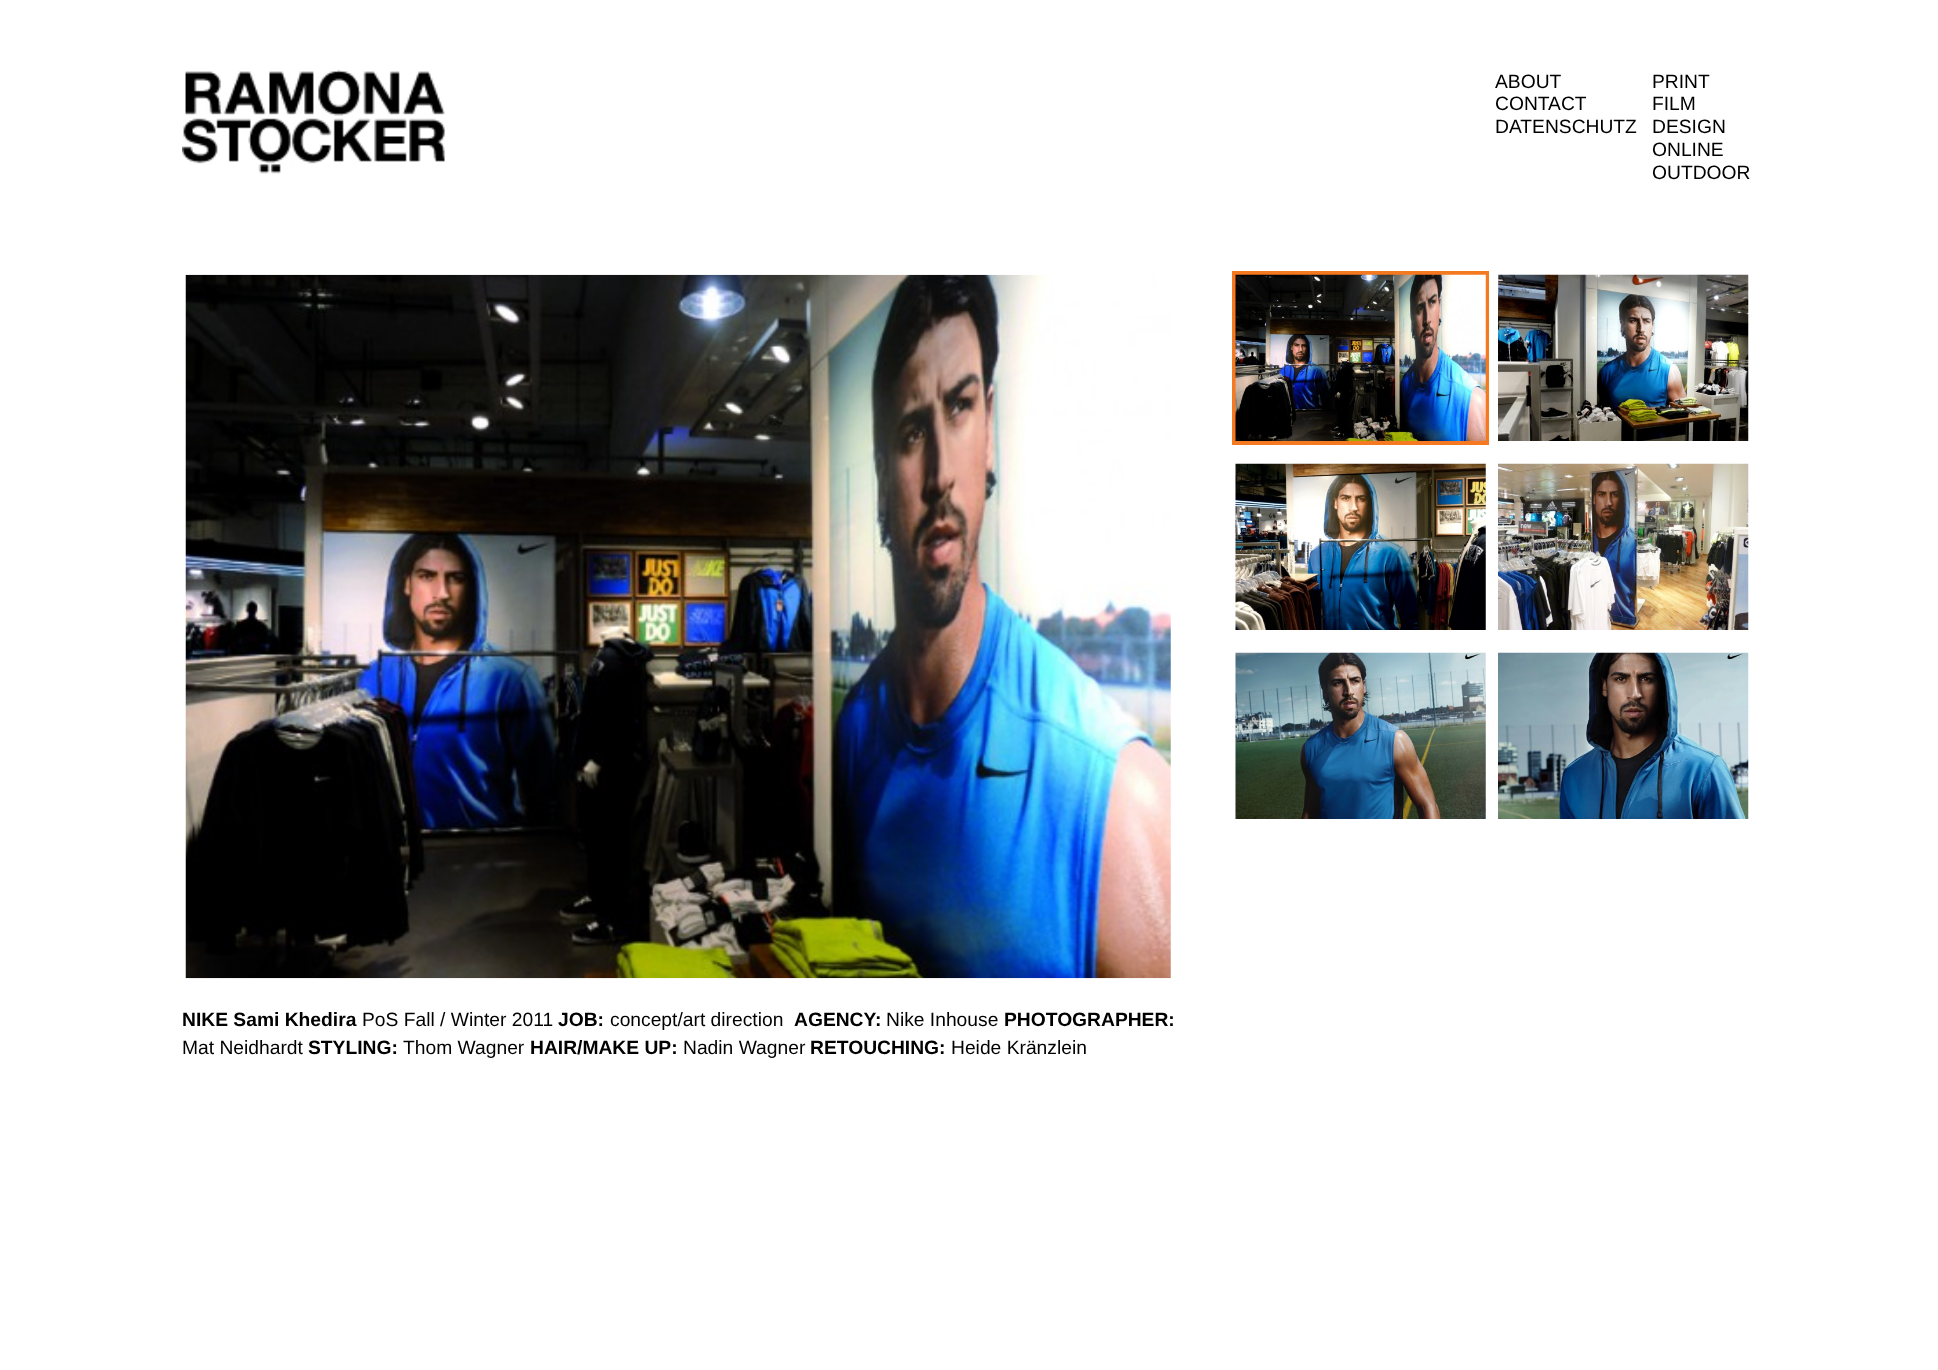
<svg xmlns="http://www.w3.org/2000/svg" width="1938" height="1370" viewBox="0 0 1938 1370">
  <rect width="100%" height="100%" fill="#fff"/>
  <image x="182" y="70" width="263" height="104" href="img/1.png"/>
  <image x="185" y="274" width="986" height="705" href="img/2.png"/>
  <path d="M1234 273h253v170H1234z" fill="none" stroke="#f47920" stroke-width="4"/>
  <image x="1235" y="274" width="251" height="167" href="img/3.png"/>
  <image x="1498" y="274" width="251" height="167" href="img/4.png"/>
  <image x="1235" y="463" width="251" height="167" href="img/5.png"/>
  <image x="1498" y="463" width="251" height="167" href="img/6.png"/>
  <image x="1235" y="652" width="251" height="167" href="img/7.png"/>
  <image x="1498" y="652" width="251" height="167" href="img/8.png"/>
  <g font-family="Liberation Sans" font-size="19.25" fill="#000">
    <text x="1495" y="88">ABOUT</text>
    <text x="1495" y="110">CONTACT</text>
    <text x="1495" y="133">DATENSCHUTZ</text>
    <text x="1652" y="88">PRINT</text>
    <text x="1652" y="110">FILM</text>
    <text x="1652" y="133">DESIGN</text>
    <text x="1652" y="156">ONLINE</text>
    <text x="1652" y="179">OUTDOOR</text>
  </g>
  <text x="182" y="1026" font-family="Liberation Sans" font-size="19.25" font-weight="bold" fill="#000">NIKE Sami Khedira</text>
  <text x="362" y="1026" font-family="Liberation Sans" font-size="19.25" fill="#000">PoS Fall / Winter 2011</text>
  <text x="558" y="1026" font-family="Liberation Sans" font-size="19.25" font-weight="bold" fill="#000">JOB:</text>
  <text x="610" y="1026" font-family="Liberation Sans" font-size="19.25" fill="#000">concept/art direction</text>
  <text x="794" y="1026" font-family="Liberation Sans" font-size="19.25" font-weight="bold" fill="#000">AGENCY:</text>
  <text x="886" y="1026" font-family="Liberation Sans" font-size="19.25" fill="#000">Nike Inhouse</text>
  <text x="1004" y="1026" font-family="Liberation Sans" font-size="19.25" font-weight="bold" fill="#000">PHOTOGRAPHER:</text>
  <text x="182" y="1054" font-family="Liberation Sans" font-size="19.25" fill="#000">Mat Neidhardt</text>
  <text x="308" y="1054" font-family="Liberation Sans" font-size="19.25" font-weight="bold" fill="#000">STYLING:</text>
  <text x="403" y="1054" font-family="Liberation Sans" font-size="19.25" fill="#000">Thom Wagner</text>
  <text x="530" y="1054" font-family="Liberation Sans" font-size="19.25" font-weight="bold" fill="#000">HAIR/MAKE UP:</text>
  <text x="683" y="1054" font-family="Liberation Sans" font-size="19.25" fill="#000">Nadin Wagner</text>
  <text x="810" y="1054" font-family="Liberation Sans" font-size="19.25" font-weight="bold" fill="#000">RETOUCHING:</text>
  <text x="951" y="1054" font-family="Liberation Sans" font-size="19.25" fill="#000">Heide Kränzlein</text>
</svg>
